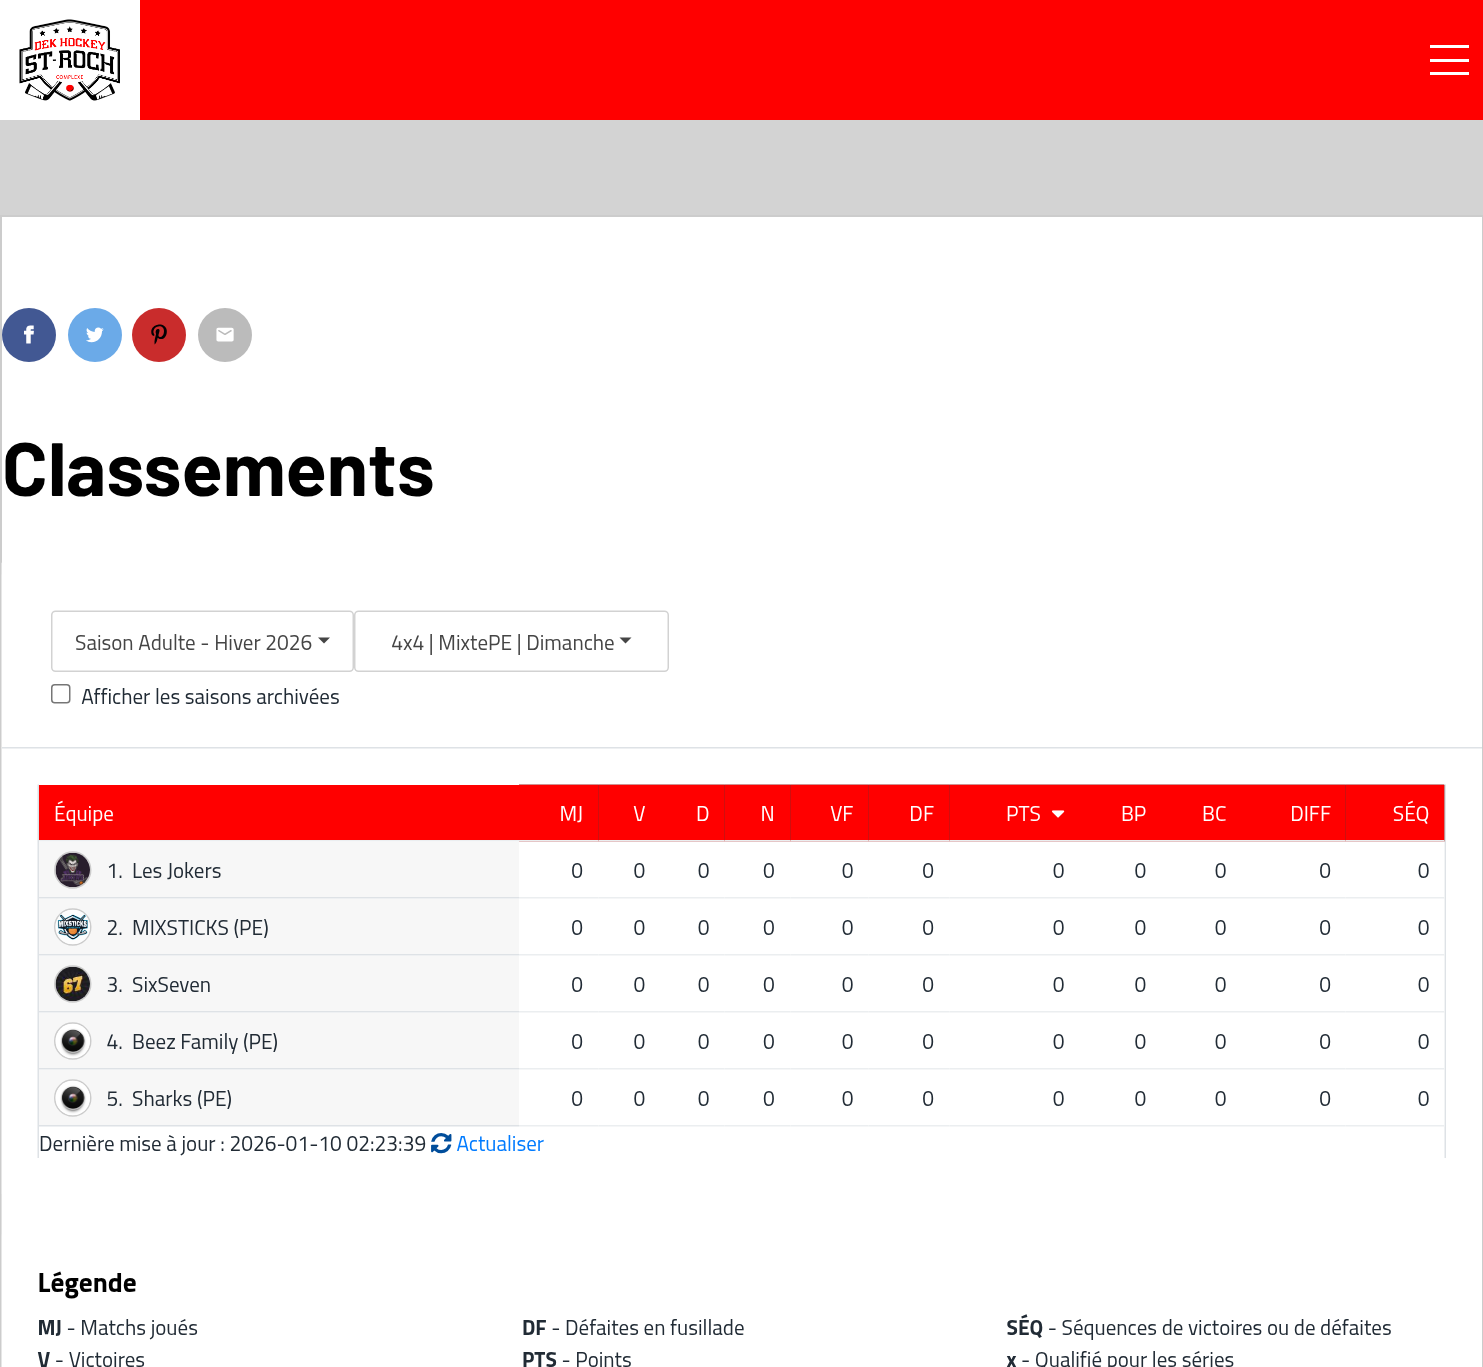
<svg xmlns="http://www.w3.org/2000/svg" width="1483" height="1367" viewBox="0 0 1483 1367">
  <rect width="100%" height="100%" fill="#d3d3d3"/>
  <path d="M140 0h1343v120H140z" fill="#f00"/>
  <path d="M0 0h140v120H0z" fill="#fff"/>
  <image x="19" y="19" width="101" height="82" href="img/1.png"/>
  <path d="M1430 45h39v3H1430z" fill="#fff"/>
  <path d="M1430 59h39v3H1430z" fill="#fff"/>
  <path d="M1430 72h39v3H1430z" fill="#fff"/>
  <path d="M2 217h1480v346H2z" fill="#fff"/>
  <path d="M1 216h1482v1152H1z" fill="none" stroke="#ccc" stroke-width="2"/>
  <circle cx="29" cy="335" r="27" fill="#425893"/>
  <image x="24" y="325" width="10" height="19" href="img/2.png"/>
  <circle cx="95" cy="335" r="27" fill="#6baae8"/>
  <image x="86" y="327" width="18" height="16" href="img/3.png"/>
  <circle cx="159" cy="335" r="27" fill="#c92c2c"/>
  <image x="151" y="324" width="16" height="21" href="img/4.png"/>
  <circle cx="225" cy="335" r="27" fill="#bbb"/>
  <image x="216" y="327" width="18" height="15" href="img/5.png"/>
  <image x="1" y="562" width="1481" height="805" href="img/6.png"/>
  <text x="2" y="496" font-family="Barlow" font-size="75.5" font-weight="bold" fill="#000">Classements</text>
</svg>
